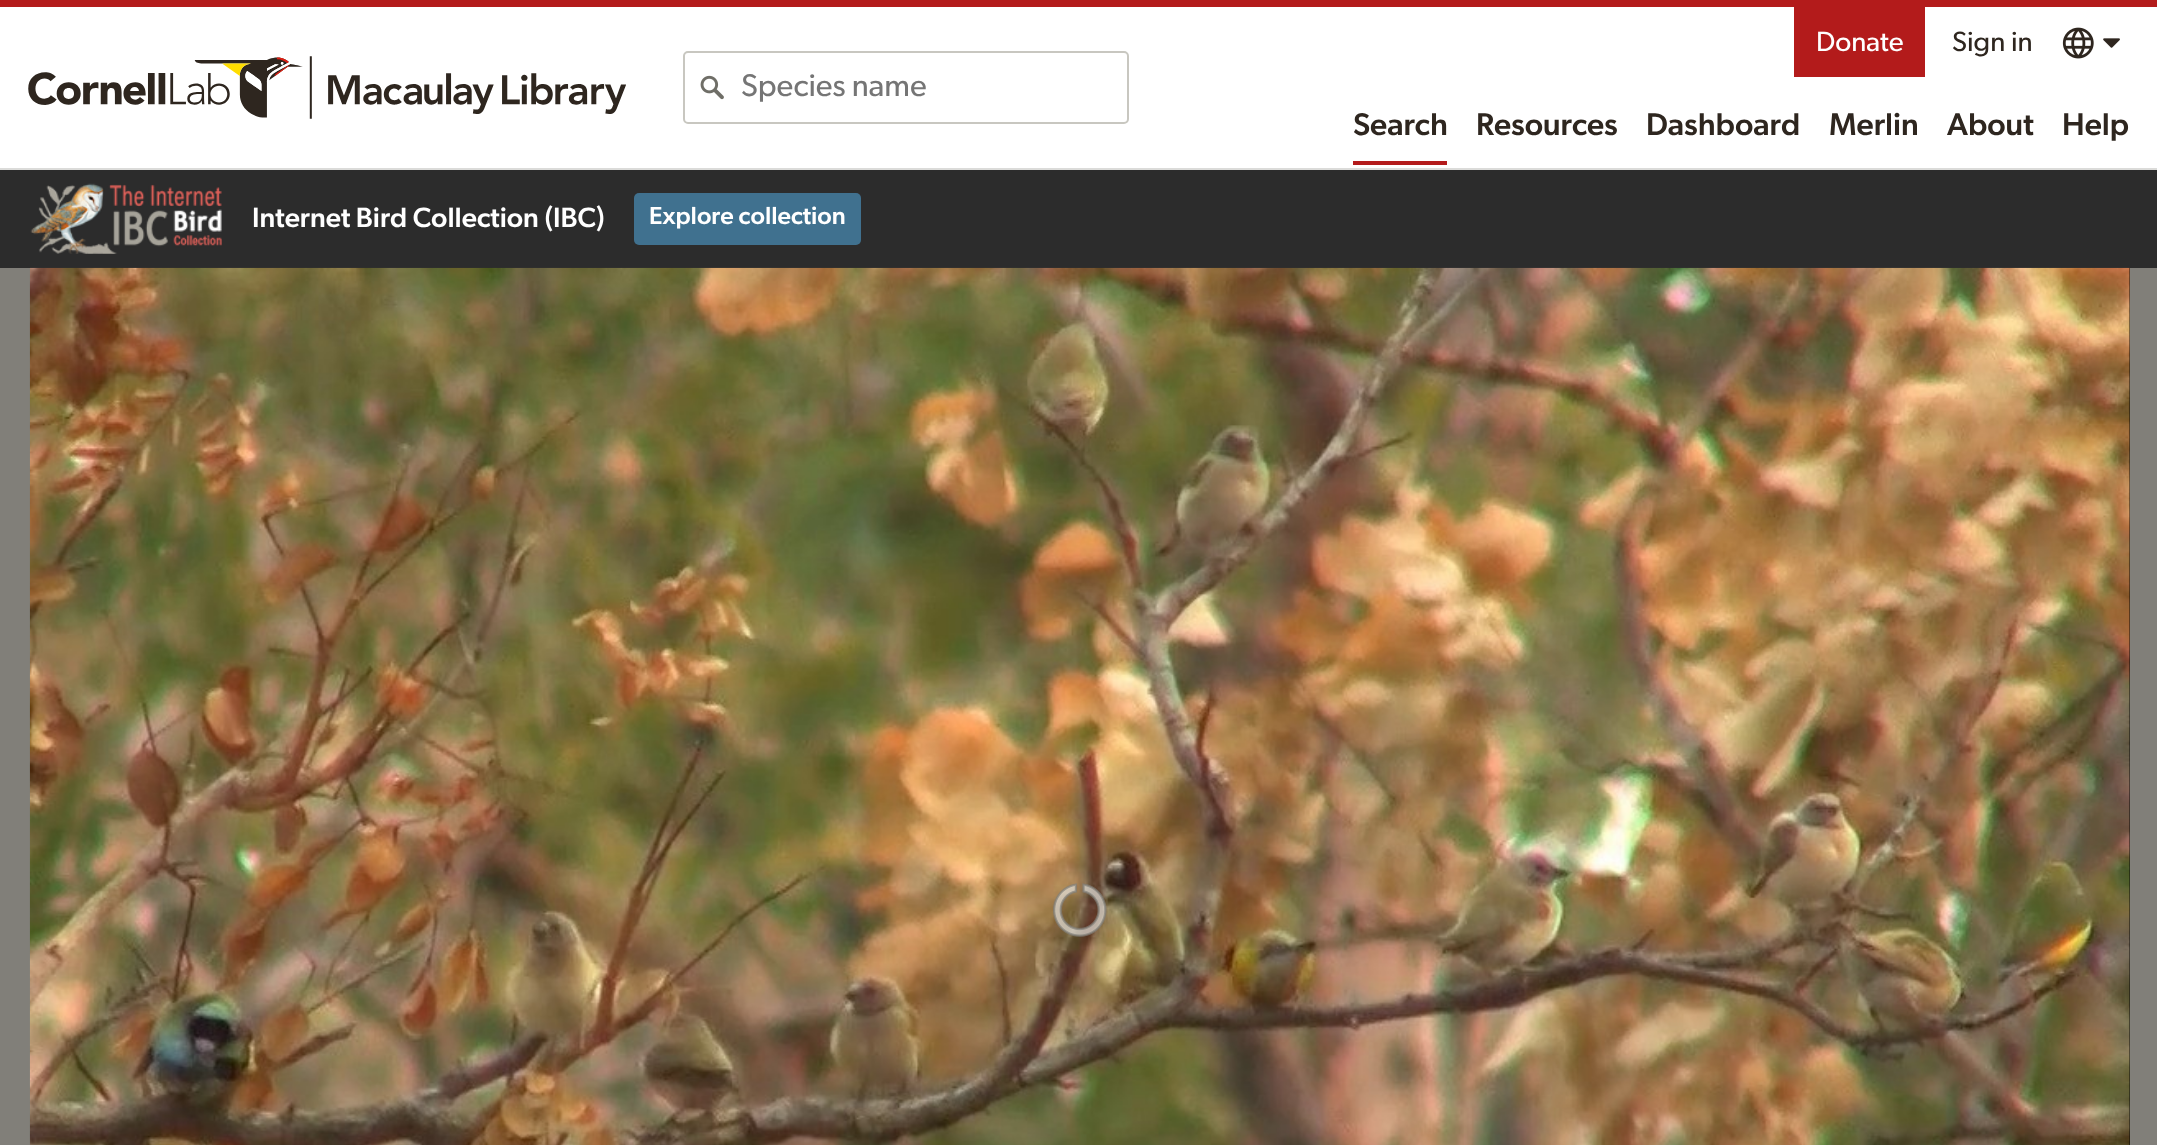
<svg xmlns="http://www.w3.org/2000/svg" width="2157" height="1145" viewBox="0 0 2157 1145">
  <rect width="100%" height="100%" fill="#fff"/>
  <path d="M0 0h2157v7H0z" fill="#b31b1b"/>
  <path d="M0 168h2157v2H0z" fill="#dbdbd9"/>
  <image x="28" y="56" width="598" height="63" href="img/1.png"/>
  <rect x="684" y="52" width="444" height="71" rx="4" fill="none" stroke="#c8c7c0" stroke-width="2"/>
  <image x="700" y="75" width="24" height="25" href="img/2.png"/>
  <path d="M1794 7h131v70H1794z" fill="#b31b1b"/>
  <image x="2062" y="27" width="32" height="32" href="img/3.png"/>
  <image x="2103" y="38" width="17" height="10" href="img/4.png"/>
  <path d="M1353 161h94v4H1353z" fill="#b31b1b"/>
  <path d="M0 170h2157v98H0z" fill="#2c2c2c"/>
  <image x="30" y="183" width="192" height="71" href="img/5.png"/>
  <rect x="634" y="193" width="227" height="52" rx="5" fill="#40718f"/>
  <path d="M0 268h2157v877H0z" fill="#817f79"/>
  <path d="M2129 268h1v877H2129z" fill="#000"/>
  <image x="29" y="267" width="2101" height="878" href="img/6.png"/>
  <image x="1053" y="883" width="54" height="54" href="img/7.png"/>
  <text x="741" y="96" font-family="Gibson" font-size="31.5" fill="#757575">Species name</text>
  <text x="1816" y="51" font-family="Gibson" font-size="28" fill="#fff">Donate</text>
  <text x="1952" y="51" font-family="Gibson" font-size="28" fill="#2e261f">Sign in</text>
  <g font-family="Gibson" font-size="31.5" font-weight="500" fill="#2e261f">
    <text x="1353" y="135">Search</text>
    <text x="1476" y="135">Resources</text>
    <text x="1646" y="135">Dashboard</text>
    <text x="1829" y="135">Merlin</text>
    <text x="1947" y="135">About</text>
    <text x="2062" y="135">Help</text>
  </g>
  <text x="252" y="227" font-family="Gibson" font-size="28" font-weight="500" fill="#fff">Internet Bird Collection (IBC)</text>
  <text x="649" y="224" font-family="Gibson" font-size="24.75" font-weight="500" fill="#fff">Explore collection</text>
</svg>
